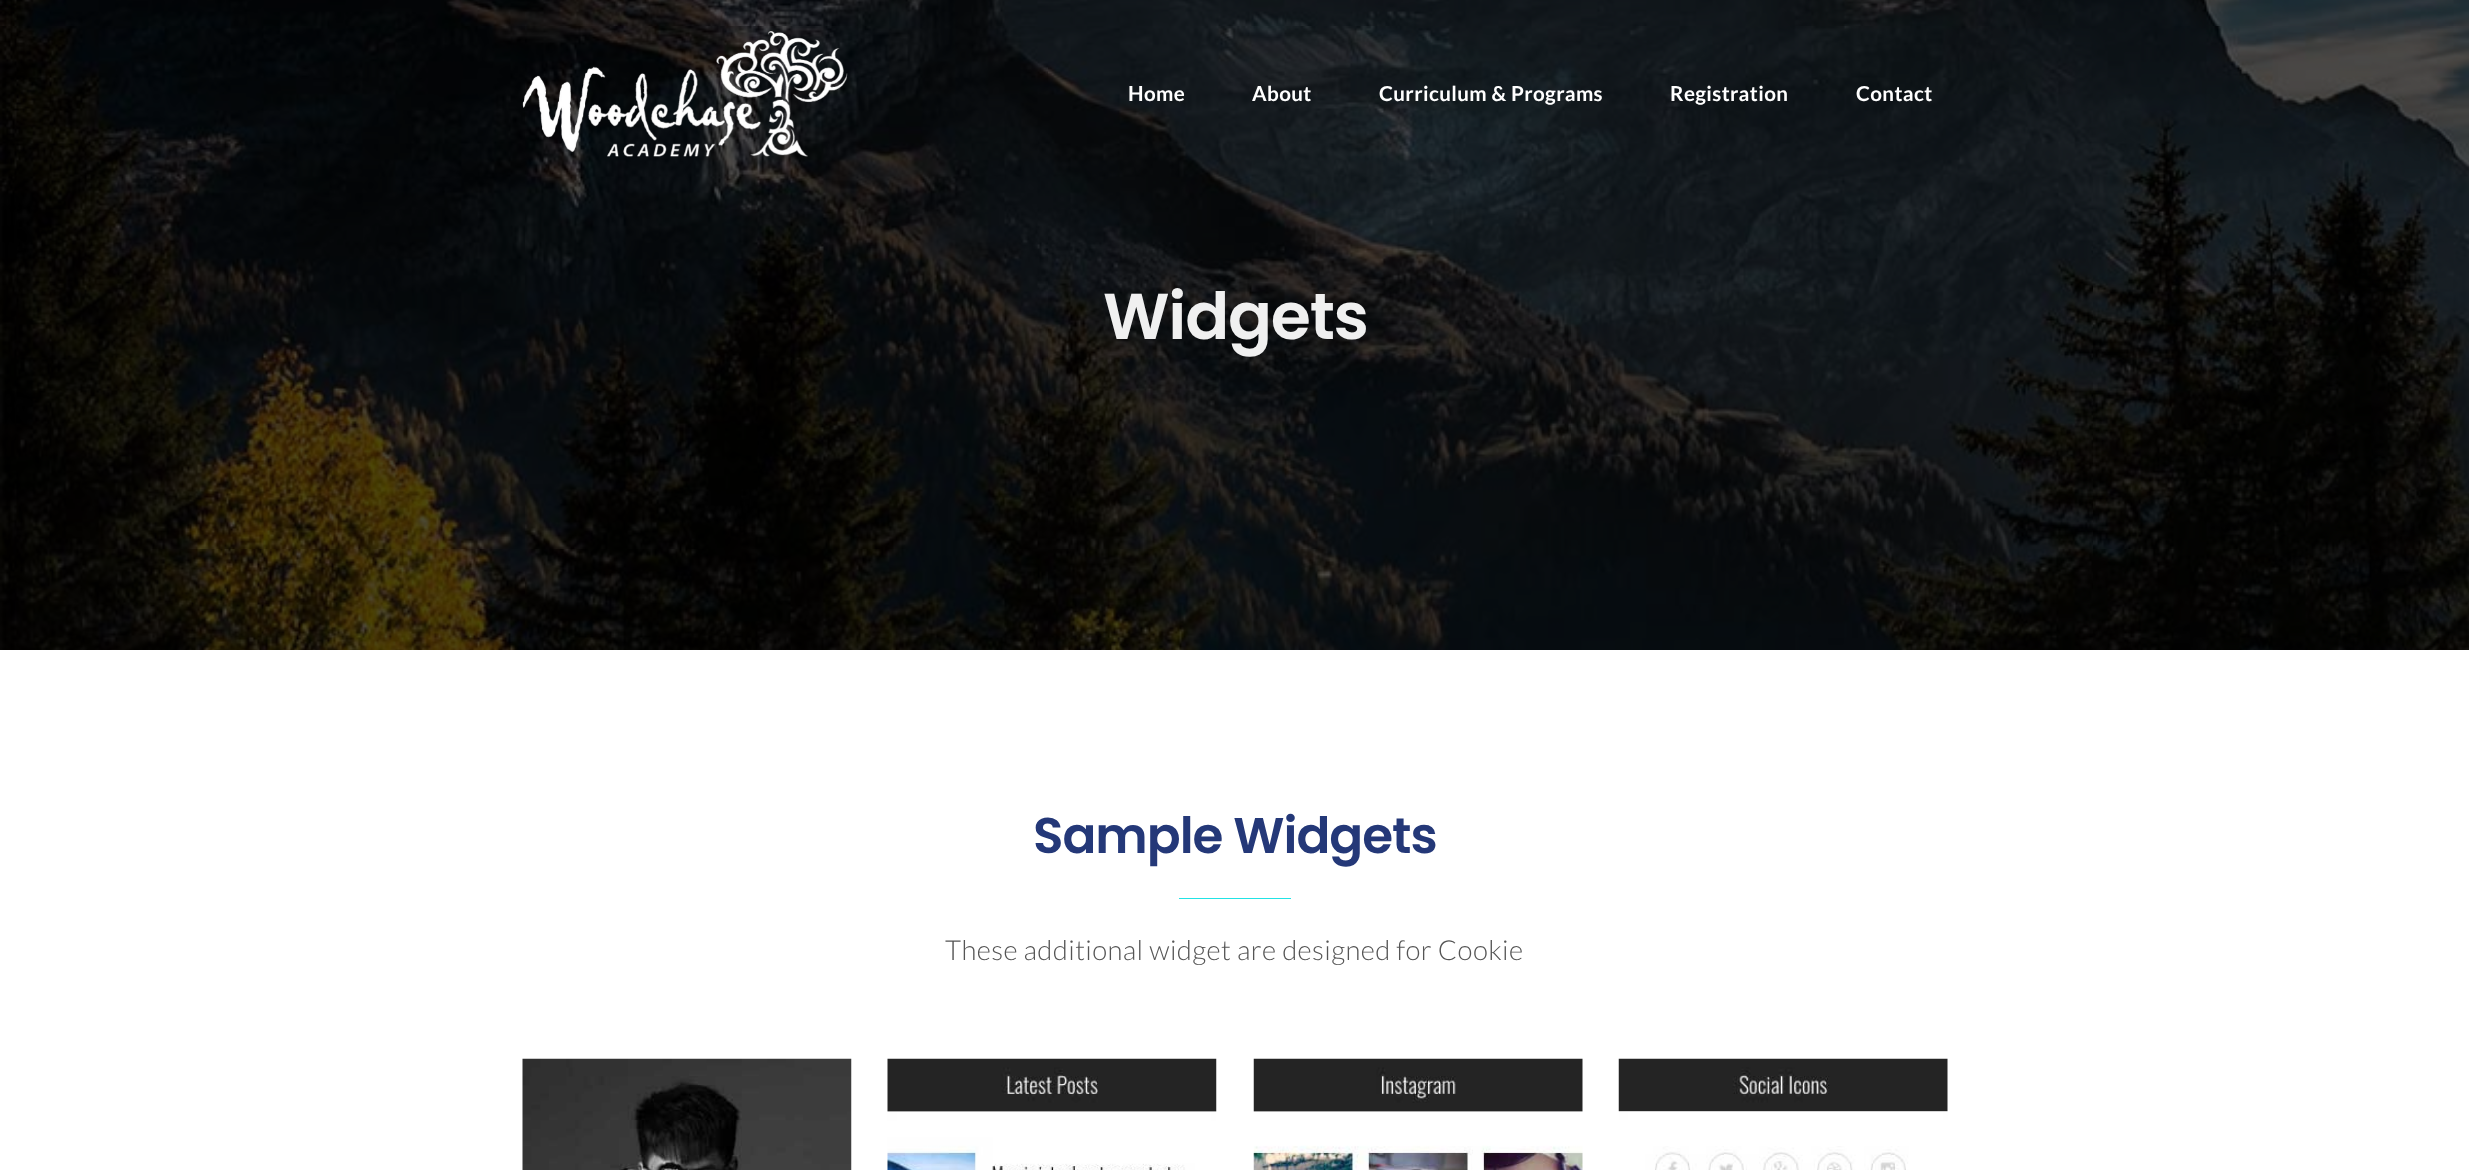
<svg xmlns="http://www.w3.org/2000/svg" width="2469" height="1170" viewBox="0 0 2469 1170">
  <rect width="100%" height="100%" fill="#fff"/>
  <image x="0" y="0" width="2469" height="650" href="img/2.png"/>
  <image x="522" y="31" width="326" height="126" href="img/1.png"/>
  <path d="M1179 898h112v1H1179z" fill="#22e3e5"/>
  <image x="522" y="1058" width="330" height="112" href="img/3.png"/>
  <image x="887" y="1058" width="330" height="112" href="img/4.png"/>
  <image x="1253" y="1058" width="330" height="112" href="img/5.png"/>
  <image x="1618" y="1058" width="330" height="112" href="img/6.png"/>
  <g font-family="Lato" font-size="20.6" font-weight="bold" letter-spacing="0.4" fill="#fff">
    <text x="1128" y="101">Home</text>
    <text x="1252" y="101">About</text>
    <text x="1379" y="101">Curriculum &amp; Programs</text>
    <text x="1670" y="101">Registration</text>
    <text x="1856" y="101">Contact</text>
  </g>
  <text x="1103" y="339" font-family="Poppins" font-size="65" font-weight="600" letter-spacing="-1.25" fill="#f0f0f0">Widgets</text>
  <text x="1033" y="853" font-family="Poppins" font-size="50" font-weight="600" letter-spacing="-1" fill="#243878">Sample Widgets</text>
  <text x="945" y="960" font-family="Lato" font-size="27.5" font-weight="300" letter-spacing="0.4" fill="#555">These additional widget are designed for Cookie</text>
</svg>
